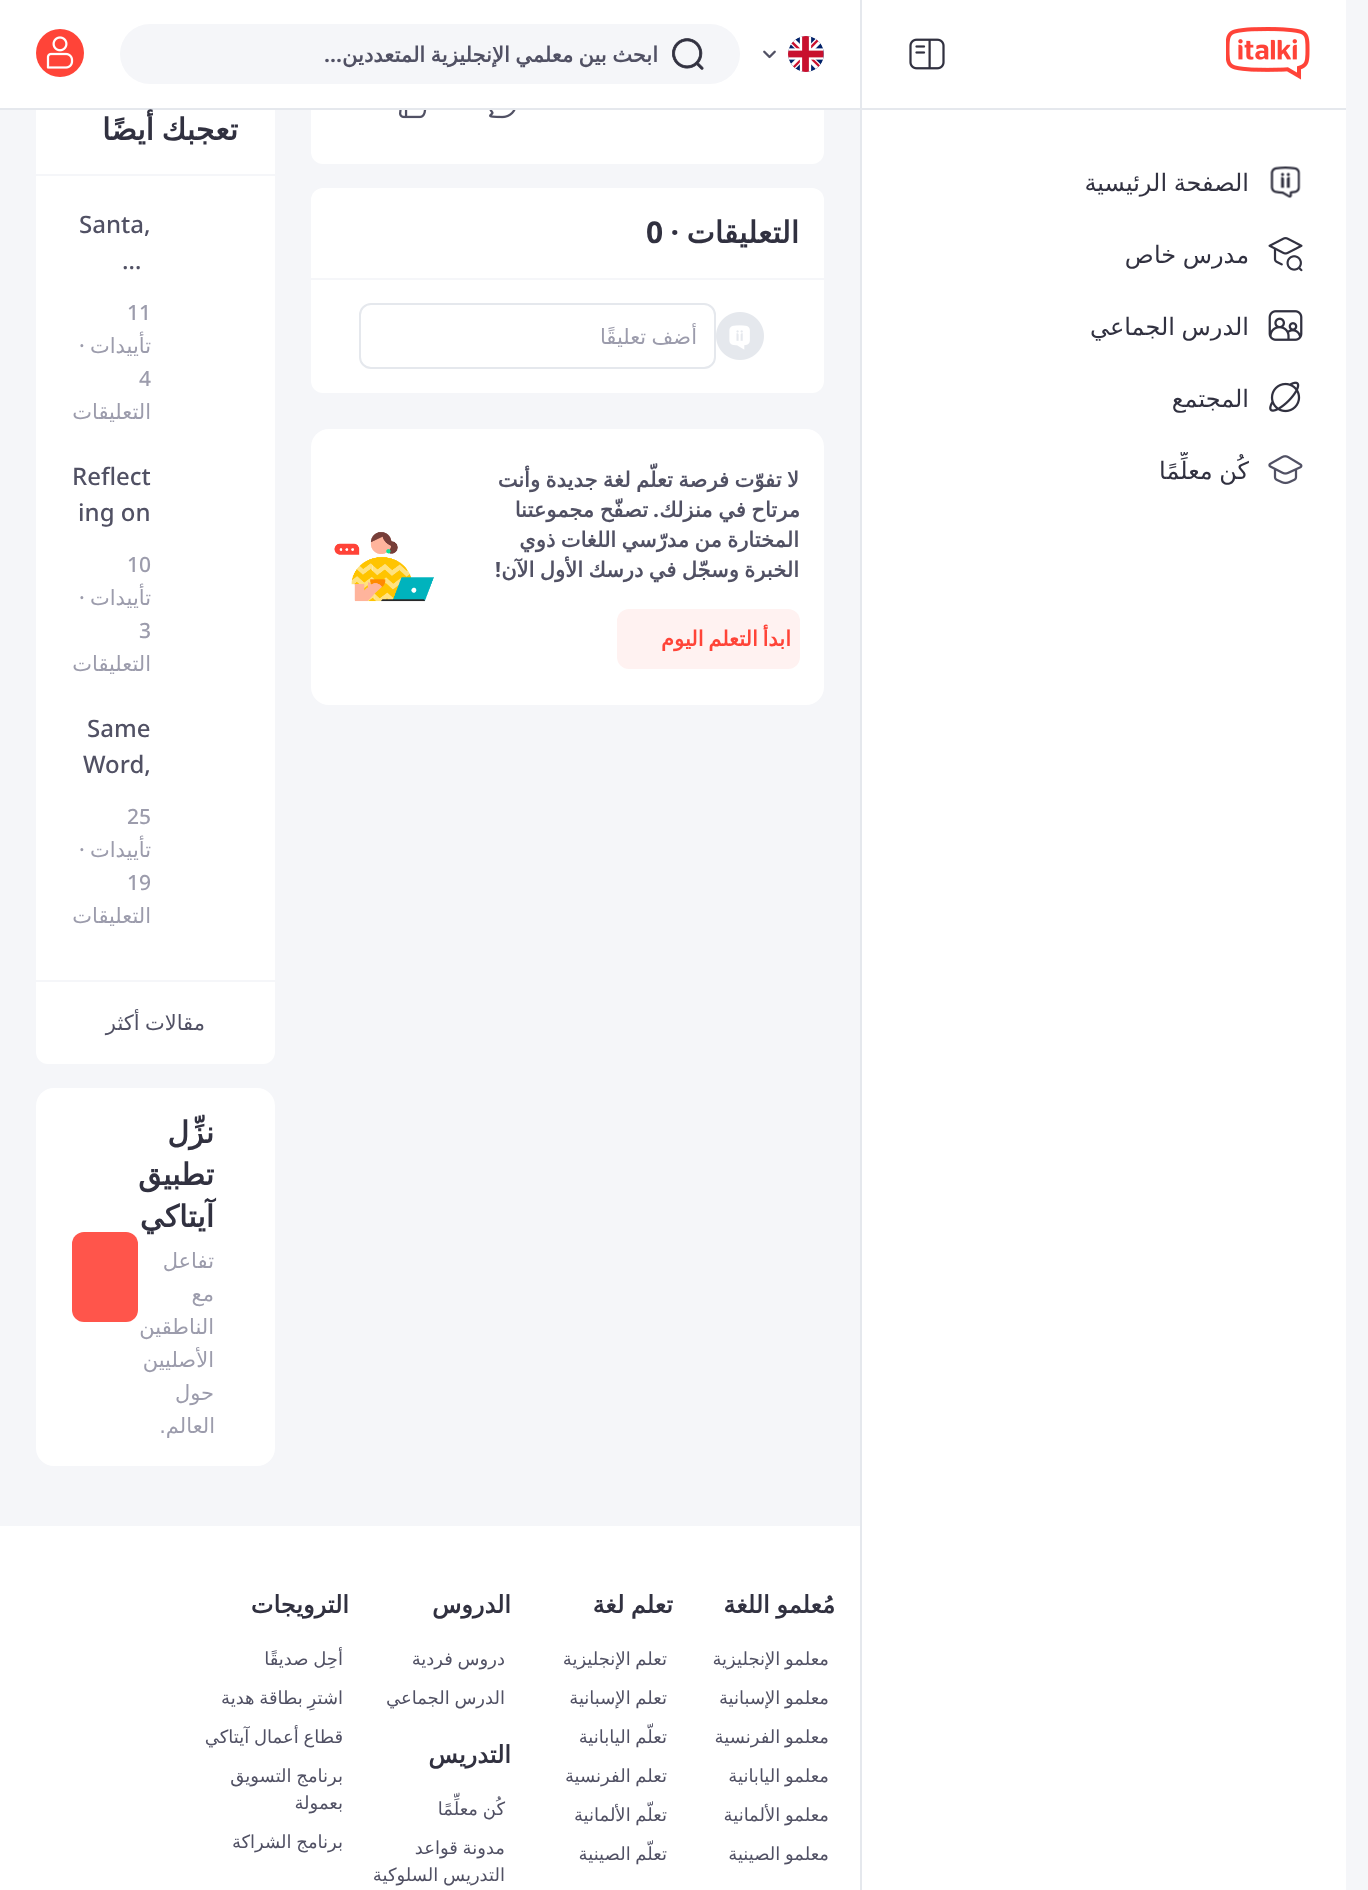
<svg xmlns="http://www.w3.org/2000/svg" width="1368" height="1890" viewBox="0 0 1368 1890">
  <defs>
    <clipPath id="clip1"><path d="M897 452h353v36H897z"/></clipPath>
    <clipPath id="clip2"><path d="M135 38h524v33H135z"/></clipPath>
  </defs>
  <rect width="100%" height="100%" fill="#f5f6f9"/>
  <path d="M862 0h484v1890H862z" fill="#fff"/>
  <path d="M860 0h2v1890H860z" fill="#e5e8ed"/>
  <path d="M861 108h485v2H861z" fill="#e5e8ed"/>
  <image x="1226" y="27" width="84" height="53" href="img/1.png"/>
  <image x="909" y="38" width="36" height="32" href="img/2.png"/>
  <image x="1270" y="166" width="31" height="33" href="img/3.png"/>
  <image x="1268" y="237" width="35" height="35" href="img/4.png"/>
  <image x="1268" y="310" width="35" height="31" href="img/5.png"/>
  <image x="1269" y="381" width="32" height="32" href="img/6.png"/>
  <image x="1268" y="455" width="35" height="30" href="img/7.png"/>
  <rect x="311" y="-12" width="513" height="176" rx="12" fill="#fff"/>
  <rect x="36" y="42" width="239" height="1022" rx="12" fill="#fff"/>
  <path d="M0 0h860v108H0z" fill="#fff"/>
  <path d="M0 108h860v2H0z" fill="#e5e8ed"/>
  <circle cx="806" cy="54" r="18" fill="#f5f6f9"/>
  <image x="788" y="36" width="36" height="36" href="img/8.png"/>
  <image x="763" y="50" width="13" height="9" href="img/9.png"/>
  <rect x="120" y="24" width="620" height="60" rx="30" fill="#f5f6f9"/>
  <image x="672" y="38" width="32" height="32" href="img/10.png"/>
  <circle cx="60" cy="53" r="24" fill="#ff4438"/>
  <image x="46" y="36" width="28" height="33" href="img/11.png"/>
  <image x="489" y="110" width="27" height="9" href="img/12.png"/>
  <image x="399" y="110" width="28" height="9" href="img/13.png"/>
  <rect x="311" y="188" width="513" height="205" rx="12" fill="#fff"/>
  <path d="M311 278h513v2H311z" fill="#f5f6f9"/>
  <image x="716" y="312" width="48" height="48" href="img/14.png"/>
  <rect x="360" y="304" width="355" height="64" rx="11" fill="none" stroke="#e5e8ed" stroke-width="2"/>
  <rect x="311" y="429" width="513" height="276" rx="18" fill="#fff"/>
  <rect x="617" y="609" width="183" height="60" rx="12" fill="#fff2f1"/>
  <image x="334" y="532" width="100" height="70" href="img/15.png"/>
  <path d="M36 174h239v2H36z" fill="#f5f6f9"/>
  <path d="M36 980h239v2H36z" fill="#f5f6f9"/>
  <rect x="36" y="1088" width="239" height="378" rx="18" fill="#fff"/>
  <rect x="72" y="1232" width="66" height="90" rx="12" fill="#ff554b"/>
  <path d="M0 1526h860v364H0z" fill="#fff"/>
  <g font-family="DejaVu Sans" font-size="24" direction="rtl" fill="#313140">
    <text x="1249" y="191" word-spacing="-1">الصفحة الرئيسية</text>
    <text x="1249" y="263" word-spacing="-1">مدرس خاص</text>
    <text x="1249" y="335" word-spacing="-1">الدرس الجماعي</text>
    <text x="1249" y="407">المجتمع</text>
  </g>
  <g clip-path="url(#clip1)">
    <text x="1249" y="479" word-spacing="-1" font-family="DejaVu Sans" font-size="24" direction="rtl" fill="#313140">كُن معلِّمًا</text>
  </g>
  <g clip-path="url(#clip2)">
    <text x="658" y="62" word-spacing="-1.25" font-family="DejaVu Sans" font-size="21" font-weight="bold" direction="rtl" fill="#515164">ابحث بين معلمي الإنجليزية المتعددين</text>
  </g>
  <text x="342" y="62" font-family="Noto Sans" font-size="21" font-weight="bold" direction="rtl" fill="#515164">...</text>
  <text x="799" y="243" font-family="DejaVu Sans" font-size="30" font-weight="bold" direction="rtl" fill="#313140">التعليقات</text>
  <text x="679" y="243" font-family="Noto Sans" font-size="30" font-weight="bold" direction="rtl" fill="#313140">·</text>
  <text x="646" y="243" font-family="Noto Sans" font-size="30" font-weight="bold" fill="#313140">0</text>
  <text x="697" y="344" word-spacing="-1.25" font-family="DejaVu Sans" font-size="21" direction="rtl" fill="#9c9cac">أضف تعليقًا</text>
  <g font-family="DejaVu Sans" font-size="21" font-weight="bold" direction="rtl" fill="#515164">
    <text x="799" y="487" word-spacing="-1.25">لا تفوّت فرصة تعلّم لغة جديدة وأنت</text>
    <text x="800" y="517" word-spacing="-1">مرتاح في منزلك</text>
  </g>
  <text x="659" y="517" font-family="Noto Sans" font-size="21" font-weight="bold" direction="rtl" fill="#515164">.</text>
  <g font-family="DejaVu Sans" font-size="21" font-weight="bold" direction="rtl" fill="#515164">
    <text x="648" y="517" word-spacing="-1">تصفّح مجموعتنا</text>
    <text x="799" y="547" word-spacing="-1.25">المختارة من مدرّسي اللغات ذوي</text>
    <text x="799" y="577" word-spacing="-1.25">الخبرة وسجّل في درسك الأول الآن</text>
  </g>
  <text x="501" y="577" font-family="Noto Sans" font-size="21" font-weight="bold" direction="rtl" fill="#515164">!</text>
  <text x="791" y="646" word-spacing="-2" font-family="DejaVu Sans" font-size="21" font-weight="bold" letter-spacing="1.1" direction="rtl" fill="#ff4438">ابدأ التعلم اليوم</text>
  <text x="238" y="140" word-spacing="-2" font-family="DejaVu Sans" font-size="30" font-weight="bold" direction="rtl" fill="#313140">تعجبك أيضًا</text>
  <g font-family="Noto Sans" font-size="24" font-weight="500" fill="#515164">
    <text x="79" y="233">Santa,</text>
    <text x="122" y="269">…</text>
  </g>
  <text x="127" y="320" font-family="Noto Sans" font-size="21" font-weight="500" fill="#9c9cac">11</text>
  <text x="151" y="353" font-family="DejaVu Sans" font-size="21" direction="rtl" fill="#9c9cac">تأييدات</text>
  <g font-family="Noto Sans" font-size="21" font-weight="500" fill="#9c9cac">
    <text x="79" y="353">·</text>
    <text x="139" y="386">4</text>
  </g>
  <text x="151" y="419" font-family="DejaVu Sans" font-size="21" direction="rtl" fill="#9c9cac">التعليقات</text>
  <g font-family="Noto Sans" font-size="24" font-weight="500" fill="#515164">
    <text x="72" y="485">Reflect</text>
    <text x="78" y="521">ing on</text>
  </g>
  <text x="127" y="572" font-family="Noto Sans" font-size="21" font-weight="500" fill="#9c9cac">10</text>
  <text x="151" y="605" font-family="DejaVu Sans" font-size="21" direction="rtl" fill="#9c9cac">تأييدات</text>
  <g font-family="Noto Sans" font-size="21" font-weight="500" fill="#9c9cac">
    <text x="79" y="605">·</text>
    <text x="139" y="638">3</text>
  </g>
  <text x="151" y="671" font-family="DejaVu Sans" font-size="21" direction="rtl" fill="#9c9cac">التعليقات</text>
  <g font-family="Noto Sans" font-size="24" font-weight="500" fill="#515164">
    <text x="87" y="737">Same</text>
    <text x="83" y="773">Word,</text>
  </g>
  <text x="127" y="824" font-family="Noto Sans" font-size="21" font-weight="500" fill="#9c9cac">25</text>
  <text x="151" y="857" font-family="DejaVu Sans" font-size="21" direction="rtl" fill="#9c9cac">تأييدات</text>
  <g font-family="Noto Sans" font-size="21" font-weight="500" fill="#9c9cac">
    <text x="79" y="857">·</text>
    <text x="127" y="890">19</text>
  </g>
  <text x="151" y="923" font-family="DejaVu Sans" font-size="21" direction="rtl" fill="#9c9cac">التعليقات</text>
  <text x="205" y="1030" word-spacing="-1.25" font-family="DejaVu Sans" font-size="21" direction="rtl" fill="#515164">مقالات أكثر</text>
  <g font-family="DejaVu Sans" font-size="30" font-weight="bold" direction="rtl" fill="#313140">
    <text x="214" y="1143">نزِّل</text>
    <text x="214" y="1185">تطبيق</text>
    <text x="214" y="1227">آيتاكي</text>
  </g>
  <g font-family="DejaVu Sans" font-size="21" direction="rtl" fill="#9c9cac">
    <text x="214" y="1268">تفاعل</text>
    <text x="214" y="1301">مع</text>
    <text x="214" y="1334">الناطقين</text>
    <text x="214" y="1367">الأصليين</text>
    <text x="214" y="1400">حول</text>
    <text x="215" y="1433">العالم.</text>
  </g>
  <text x="835" y="1613" word-spacing="-1" font-family="DejaVu Sans" font-size="24" font-weight="bold" direction="rtl" fill="#313140">مُعلمو اللغة</text>
  <g font-family="DejaVu Sans" font-size="18" direction="rtl" fill="#515164">
    <text x="829" y="1665" word-spacing="-1">معلمو الإنجليزية</text>
    <text x="829" y="1704" word-spacing="-1">معلمو الإسبانية</text>
    <text x="829" y="1743" word-spacing="-1">معلمو الفرنسية</text>
    <text x="829" y="1782" word-spacing="-1">معلمو اليابانية</text>
    <text x="829" y="1821" word-spacing="-1">معلمو الألمانية</text>
    <text x="829" y="1860" word-spacing="-1">معلمو الصينية</text>
  </g>
  <text x="673" y="1613" word-spacing="-1" font-family="DejaVu Sans" font-size="24" font-weight="bold" direction="rtl" fill="#313140">تعلم لغة</text>
  <g font-family="DejaVu Sans" font-size="18" direction="rtl" fill="#515164">
    <text x="667" y="1665" word-spacing="-1">تعلم الإنجليزية</text>
    <text x="667" y="1704" word-spacing="-1">تعلم الإسبانية</text>
    <text x="667" y="1743" word-spacing="-1">تعلّم اليابانية</text>
    <text x="667" y="1782" word-spacing="-1">تعلم الفرنسية</text>
    <text x="667" y="1821" word-spacing="-1">تعلّم الألمانية</text>
    <text x="667" y="1860" word-spacing="-1">تعلّم الصينية</text>
  </g>
  <text x="511" y="1613" font-family="DejaVu Sans" font-size="24" font-weight="bold" direction="rtl" fill="#313140">الدروس</text>
  <g font-family="DejaVu Sans" font-size="18" direction="rtl" fill="#515164">
    <text x="505" y="1665" word-spacing="-1">دروس فردية</text>
    <text x="505" y="1704" word-spacing="-1">الدرس الجماعي</text>
  </g>
  <text x="511" y="1763" font-family="DejaVu Sans" font-size="24" font-weight="bold" direction="rtl" fill="#313140">التدريس</text>
  <g font-family="DejaVu Sans" font-size="18" direction="rtl" fill="#515164">
    <text x="505" y="1815" word-spacing="-1">كُن معلِّمًا</text>
    <text x="505" y="1854" word-spacing="-1">مدونة قواعد</text>
    <text x="505" y="1881" word-spacing="-1">التدريس السلوكية</text>
  </g>
  <text x="349" y="1613" font-family="DejaVu Sans" font-size="24" font-weight="bold" direction="rtl" fill="#313140">الترويجات</text>
  <g font-family="DejaVu Sans" font-size="18" direction="rtl" fill="#515164">
    <text x="343" y="1665" word-spacing="-1">أحِل صديقًا</text>
    <text x="343" y="1704" word-spacing="-1">اشترِ بطاقة هدية</text>
    <text x="343" y="1743" word-spacing="-1">قطاع أعمال آيتاكي</text>
    <text x="343" y="1782" word-spacing="-1">برنامج التسويق</text>
    <text x="343" y="1809">بعمولة</text>
    <text x="343" y="1848" word-spacing="-1">برنامج الشراكة</text>
  </g>
</svg>
